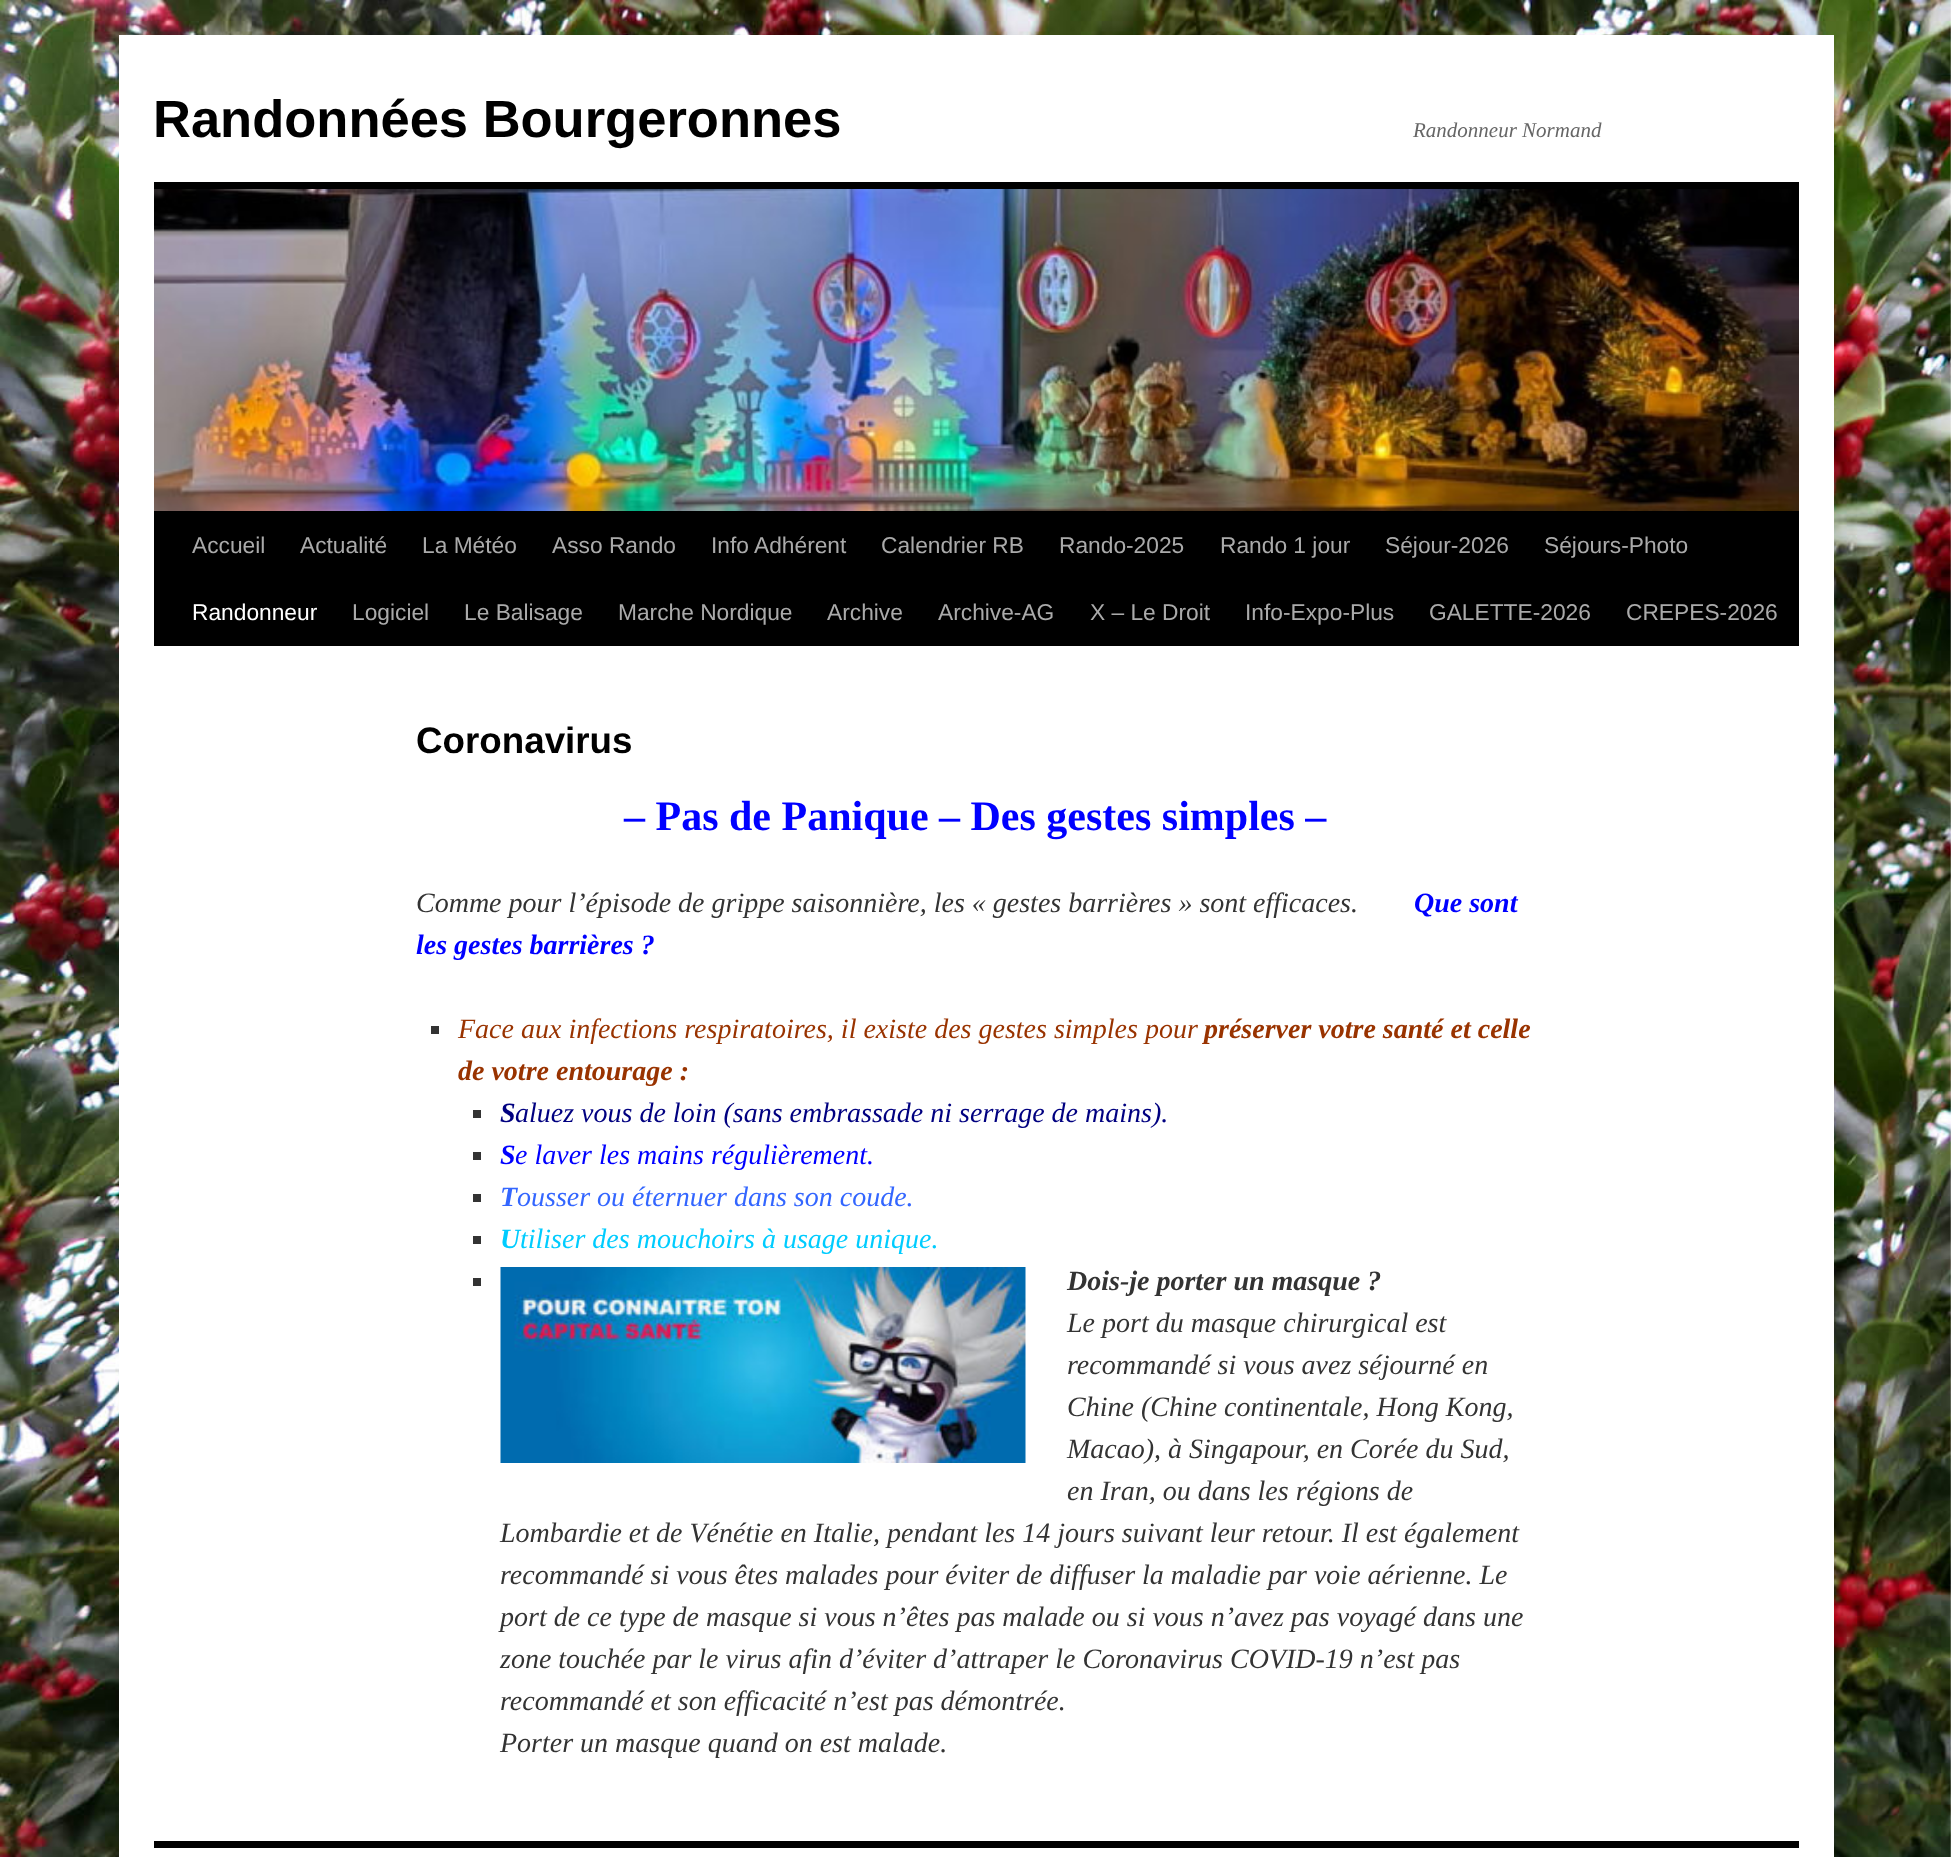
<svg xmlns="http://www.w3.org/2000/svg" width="1951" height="1857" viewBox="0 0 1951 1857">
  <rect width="100%" height="100%" fill="#fff"/>
  <image x="0" y="0" width="1951" height="1857" href="img/1.png"/>
  <path d="M119 35h1715v1822H119z" fill="#fff"/>
  <path d="M154 182h1645v7H154z" fill="#000"/>
  <path d="M154 511h1645v135H154z" fill="#000"/>
  <image x="154" y="189" width="1645" height="322" href="img/2.png"/>
  <path d="M431 1026h8v8H431z" fill="#333"/>
  <path d="M473 1110h8v8H473z" fill="#333"/>
  <path d="M473 1152h8v8H473z" fill="#333"/>
  <path d="M473 1194h8v8H473z" fill="#333"/>
  <path d="M473 1236h8v8H473z" fill="#333"/>
  <path d="M473 1278h8v8H473z" fill="#333"/>
  <image x="500" y="1267" width="526" height="196" href="img/3.png"/>
  <path d="M154 1841h1645v7H154z" fill="#000"/>
  <text x="153" y="137" font-family="Liberation Sans" font-size="52.5" font-weight="bold" fill="#000">Randonnées Bourgeronnes</text>
  <text x="1413" y="137" font-family="Liberation Serif" font-size="21" font-style="italic" fill="#666">Randonneur Normand</text>
  <g font-family="Liberation Sans" font-size="22.75" fill="#aaa">
    <text x="192" y="553">Accueil</text>
    <text x="300" y="553">Actualité</text>
    <text x="422" y="553">La Météo</text>
    <text x="552" y="553">Asso Rando</text>
    <text x="711" y="553">Info Adhérent</text>
    <text x="881" y="553">Calendrier RB</text>
    <text x="1059" y="553">Rando-2025</text>
    <text x="1220" y="553">Rando 1 jour</text>
    <text x="1385" y="553">Séjour-2026</text>
    <text x="1544" y="553">Séjours-Photo</text>
  </g>
  <text x="192" y="620" font-family="Liberation Sans" font-size="22.75" fill="#fff">Randonneur</text>
  <g font-family="Liberation Sans" font-size="22.75" fill="#aaa">
    <text x="352" y="620">Logiciel</text>
    <text x="464" y="620">Le Balisage</text>
    <text x="618" y="620">Marche Nordique</text>
    <text x="827" y="620">Archive</text>
    <text x="938" y="620">Archive-AG</text>
    <text x="1090" y="620">X – Le Droit</text>
    <text x="1245" y="620">Info-Expo-Plus</text>
    <text x="1429" y="620">GALETTE-2026</text>
    <text x="1626" y="620">CREPES-2026</text>
  </g>
  <text x="416" y="753" font-family="Liberation Sans" font-size="36.75" font-weight="bold" fill="#000">Coronavirus</text>
  <text x="624" y="830" font-family="Liberation Serif" font-size="42" font-weight="bold" fill="#00f">– Pas de Panique – Des gestes simples –</text>
  <text x="416" y="912" font-family="Liberation Serif" font-size="28" font-style="italic" fill="#333">Comme pour l’épisode de grippe saisonnière, les « gestes barrières » sont efficaces.</text>
  <g font-family="Liberation Serif" font-size="28" font-weight="bold" font-style="italic" fill="#00f">
    <text x="1414" y="912">Que sont</text>
    <text x="416" y="954">les gestes barrières ?</text>
  </g>
  <text x="458" y="1038" font-family="Liberation Serif" font-size="28" font-style="italic" fill="#930">Face aux infections respiratoires, il existe des gestes simples pour</text>
  <g font-family="Liberation Serif" font-size="28" font-weight="bold" font-style="italic" fill="#930">
    <text x="1204" y="1038">préserver votre santé et celle</text>
    <text x="458" y="1080">de votre entourage :</text>
  </g>
  <text x="500" y="1122" font-family="Liberation Serif" font-size="28" font-weight="bold" font-style="italic" fill="#000080">S</text>
  <text x="515" y="1122" font-family="Liberation Serif" font-size="28" font-style="italic" fill="#000080">aluez vous de loin (sans embrassade ni serrage de mains).</text>
  <text x="500" y="1164" font-family="Liberation Serif" font-size="28" font-weight="bold" font-style="italic" fill="#00f">S</text>
  <text x="515" y="1164" font-family="Liberation Serif" font-size="28" font-style="italic" fill="#00f">e laver les mains régulièrement.</text>
  <text x="500" y="1206" font-family="Liberation Serif" font-size="28" font-weight="bold" font-style="italic" fill="#36f">T</text>
  <text x="517" y="1206" font-family="Liberation Serif" font-size="28" font-style="italic" fill="#36f">ousser ou éternuer dans son coude.</text>
  <text x="500" y="1248" font-family="Liberation Serif" font-size="28" font-weight="bold" font-style="italic" fill="#0cf">U</text>
  <text x="520" y="1248" font-family="Liberation Serif" font-size="28" font-style="italic" fill="#0cf">tiliser des mouchoirs à usage unique.</text>
  <text x="1067" y="1290" font-family="Liberation Serif" font-size="28" font-weight="bold" font-style="italic" fill="#333">Dois-je porter un masque ?</text>
  <g font-family="Liberation Serif" font-size="28" font-style="italic" fill="#333">
    <text x="1067" y="1332">Le port du masque chirurgical est</text>
    <text x="1067" y="1374">recommandé si vous avez séjourné en</text>
    <text x="1067" y="1416">Chine (Chine continentale, Hong Kong,</text>
    <text x="1067" y="1458">Macao), à Singapour, en Corée du Sud,</text>
    <text x="1067" y="1500">en Iran, ou dans les régions de</text>
    <text x="500" y="1542">Lombardie et de Vénétie en Italie, pendant les 14 jours suivant leur retour. Il est également</text>
    <text x="500" y="1584">recommandé si vous êtes malades pour éviter de diffuser la maladie par voie aérienne. Le</text>
    <text x="500" y="1626">port de ce type de masque si vous n’êtes pas malade ou si vous n’avez pas voyagé dans une</text>
    <text x="500" y="1668">zone touchée par le virus afin d’éviter d’attraper le Coronavirus COVID-19 n’est pas</text>
    <text x="500" y="1710">recommandé et son efficacité n’est pas démontrée.</text>
    <text x="500" y="1752">Porter un masque quand on est malade.</text>
  </g>
</svg>
